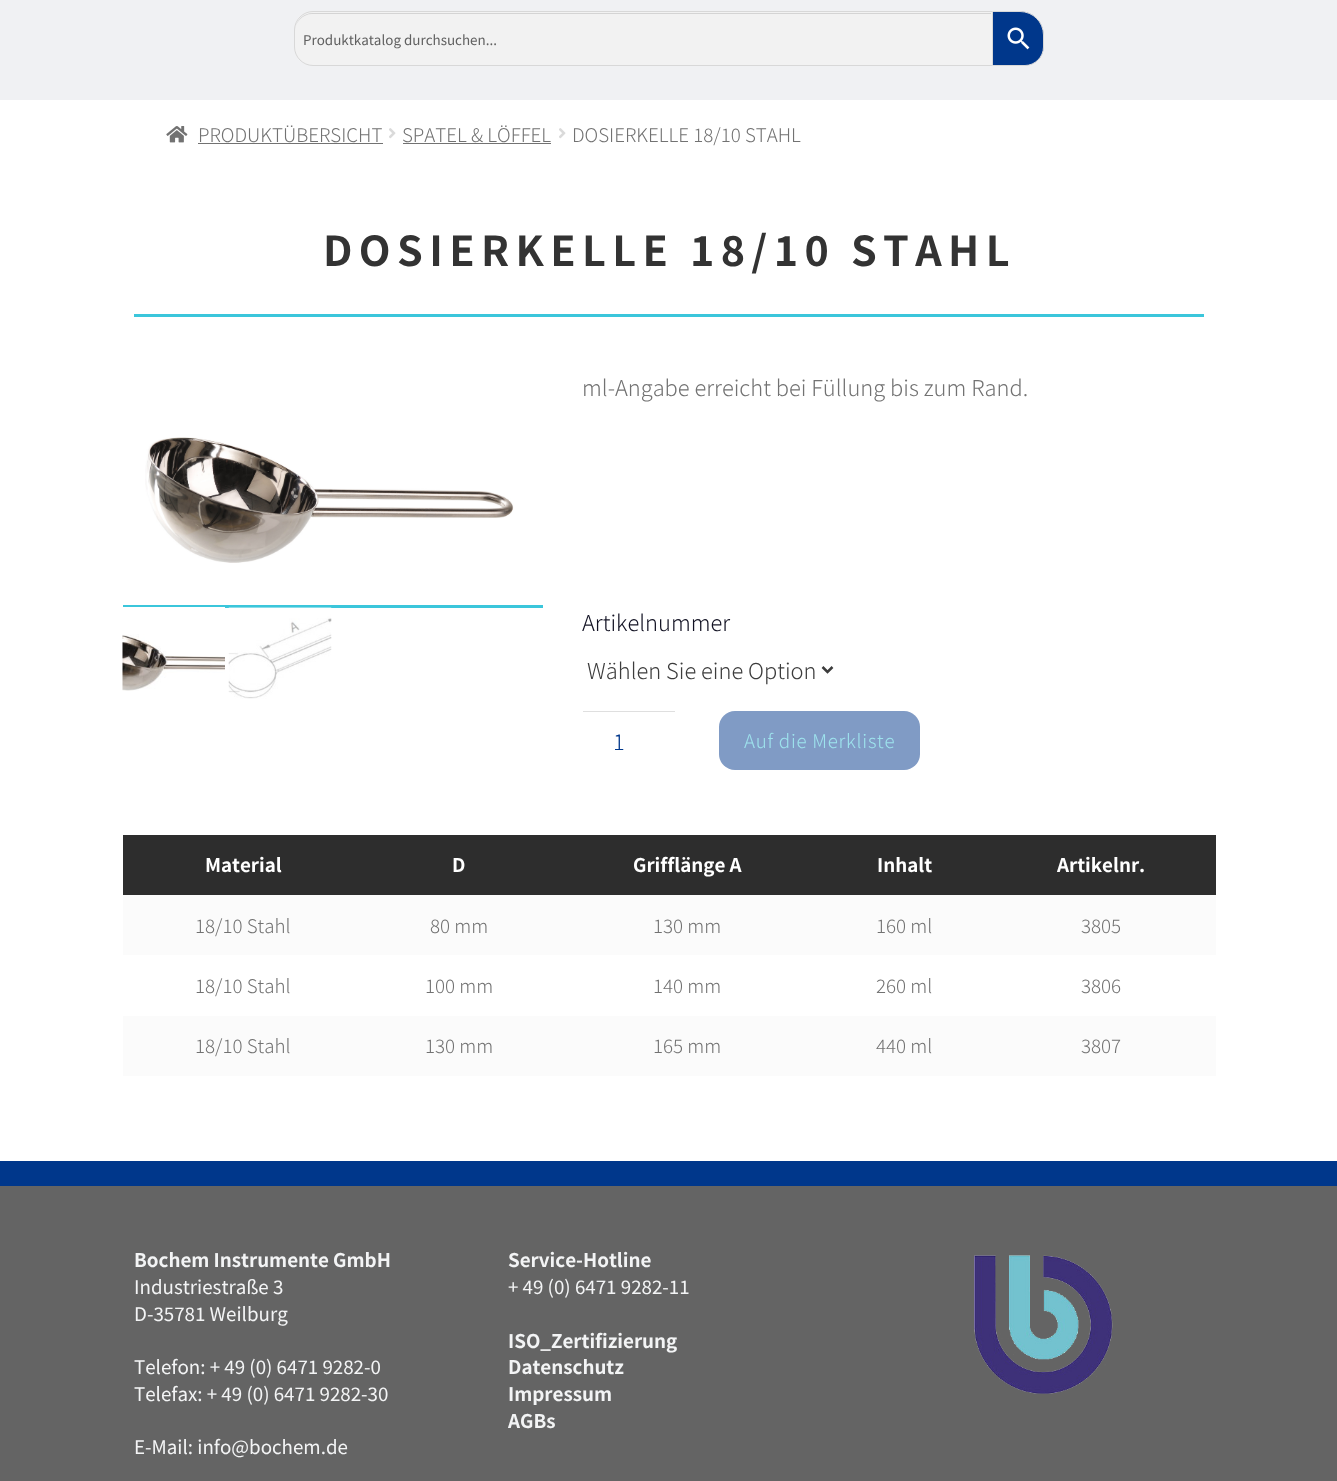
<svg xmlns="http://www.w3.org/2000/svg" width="1337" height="1481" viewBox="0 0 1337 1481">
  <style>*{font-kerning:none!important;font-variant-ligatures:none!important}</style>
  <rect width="100%" height="100%" fill="#fff"/>
  <path d="M0 0h1337v100H0z" fill="#f0f1f3"/>
  <path d="M991.5 11.5H1020C1033 11.5 1043.5 22 1043.5 35V47C1043.5 57 1035 65.5 1025 65.5H991.5Z" fill="#00378b" stroke="#d8d8d8"/>
  <path d="M313 11H993V66H313C302.5 66 294 57.5 294 47V30C294 19.5 302.5 11 313 11Z" fill="#f2f2f2"/>
  <path d="M312 14C303 14 295 22 295 31C295 21 303 13 313 13H991V14Z" fill="#d4d4d4"/>
  <path d="M313 11.5H992.5V65.5H313C303 65.5 294.5 57 294.5 47V30C294.5 20 303 11.5 313 11.5Z" fill="none" stroke="#d8d8d8"/>
  <image x="1007" y="27" width="23" height="23" href="img/1.png"/>
  <image x="166" y="126" width="22" height="17" href="img/2.png"/>
  <path d="M198 143h185v1H198z" fill="#727272"/>
  <image x="389" y="128" width="7" height="11" href="img/3.png"/>
  <path d="M403 143h148v1H403z" fill="#727272"/>
  <image x="559" y="128" width="7" height="11" href="img/3.png"/>
  <path d="M134 314h1070v3H134z" fill="#3bc6db"/>
  <path d="M123 605h420v3H123z" fill="#3bc6db"/>
  <image x="145" y="437" width="369" height="126" href="img/4.png"/>
  <image x="122" y="607" width="103" height="84" href="img/5.png"/>
  <image x="228" y="607" width="104" height="92" href="img/6.png"/>
  <path d="M822.5 667L827.5 672L832.5 667" fill="none" stroke="#3c3c3c" stroke-width="2.5"/>
  <path d="M583 711h92v1H583z" fill="#dfdfdf"/>
  <rect x="719" y="711" width="201" height="59" rx="16" fill="#809bc5"/>
  <path d="M123 835h1093v60H123z" fill="#2d2d2d"/>
  <path d="M123 895h1093v60H123z" fill="#fbfbfb"/>
  <path d="M123 1016h1093v60H123z" fill="#fbfbfb"/>
  <path d="M0 1186h1337v295H0z" fill="#646464"/>
  <path d="M0 1161h1337v25H0z" fill="#00378b"/>
  <image x="974" y="1255" width="139" height="139" href="img/7.png"/>
  <text x="303" y="45" font-family="Source Sans Pro" font-size="15" fill="#616161">Produktkatalog durchsuchen...</text>
  <g font-family="Noto Sans SC" font-size="18.75" font-weight="300" fill="#727272">
    <text x="198" y="142">PRODUKTÜBERSICHT</text>
    <text x="402" y="142">SPATEL &amp; LÖFFEL</text>
    <text x="572" y="142">DOSIERKELLE 18/10 STAHL</text>
  </g>
  <text x="323" y="266" font-family="Noto Sans SC" font-size="41.25" font-weight="bold" letter-spacing="6.4" fill="#333">DOSIERKELLE 18/10 STAHL</text>
  <text x="582" y="396" font-family="Noto Sans SC" font-size="21.9" font-weight="300" fill="#727272">ml-Angabe erreicht bei Füllung bis zum Rand.</text>
  <text x="582" y="631" font-family="Noto Sans SC" font-size="21.9" font-weight="300" fill="#112">Artikelnummer</text>
  <text x="587" y="679" font-family="Noto Sans SC" font-size="21.9" font-weight="300" fill="#3c3c3c">Wählen Sie eine Option</text>
  <text x="613" y="750" font-family="Noto Sans SC" font-size="21.9" font-weight="300" fill="#00378b">1</text>
  <text x="744" y="748" font-family="Noto Sans SC" font-size="18.75" font-weight="300" letter-spacing="0.75" fill="#9de3ed">Auf die Merkliste</text>
  <g font-family="Noto Sans SC" font-size="18.75" font-weight="bold" fill="#fff">
    <text x="205" y="872">Material</text>
    <text x="452" y="872">D</text>
    <text x="633" y="872">Grifflänge A</text>
    <text x="877" y="872">Inhalt</text>
    <text x="1057" y="872">Artikelnr.</text>
  </g>
  <g font-family="Noto Sans SC" font-size="18.75" font-weight="300" fill="#727272">
    <text x="195" y="933">18/10 Stahl</text>
    <text x="430" y="933">80 mm</text>
    <text x="653" y="933">130 mm</text>
    <text x="876" y="933">160 ml</text>
    <text x="1081" y="933">3805</text>
    <text x="195" y="993">18/10 Stahl</text>
    <text x="425" y="993">100 mm</text>
    <text x="653" y="993">140 mm</text>
    <text x="876" y="993">260 ml</text>
    <text x="1081" y="993">3806</text>
    <text x="195" y="1053">18/10 Stahl</text>
    <text x="425" y="1053">130 mm</text>
    <text x="653" y="1053">165 mm</text>
    <text x="876" y="1053">440 ml</text>
    <text x="1081" y="1053">3807</text>
  </g>
  <text x="134" y="1267" font-family="Noto Sans SC" font-size="18.75" font-weight="bold" fill="#f3f4f5">Bochem Instrumente GmbH</text>
  <g font-family="Noto Sans SC" font-size="18.75" fill="#f3f4f5">
    <text x="134" y="1294">Industriestraße 3</text>
    <text x="134" y="1321">D-35781 Weilburg</text>
    <text x="134" y="1374">Telefon: + 49 (0) 6471 9282-0</text>
    <text x="134" y="1401">Telefax: + 49 (0) 6471 9282-30</text>
    <text x="134" y="1454">E-Mail: info@bochem.de</text>
  </g>
  <text x="508" y="1267" font-family="Noto Sans SC" font-size="18.75" font-weight="bold" fill="#f3f4f5">Service-Hotline</text>
  <text x="508" y="1294" font-family="Noto Sans SC" font-size="18.75" fill="#f3f4f5">+ 49 (0) 6471 9282-11</text>
  <g font-family="Noto Sans SC" font-size="18.75" font-weight="bold" fill="#f3f4f5">
    <text x="508" y="1348">ISO_Zertifizierung</text>
    <text x="508" y="1374">Datenschutz</text>
    <text x="508" y="1401">Impressum</text>
    <text x="508" y="1428">AGBs</text>
  </g>
</svg>
